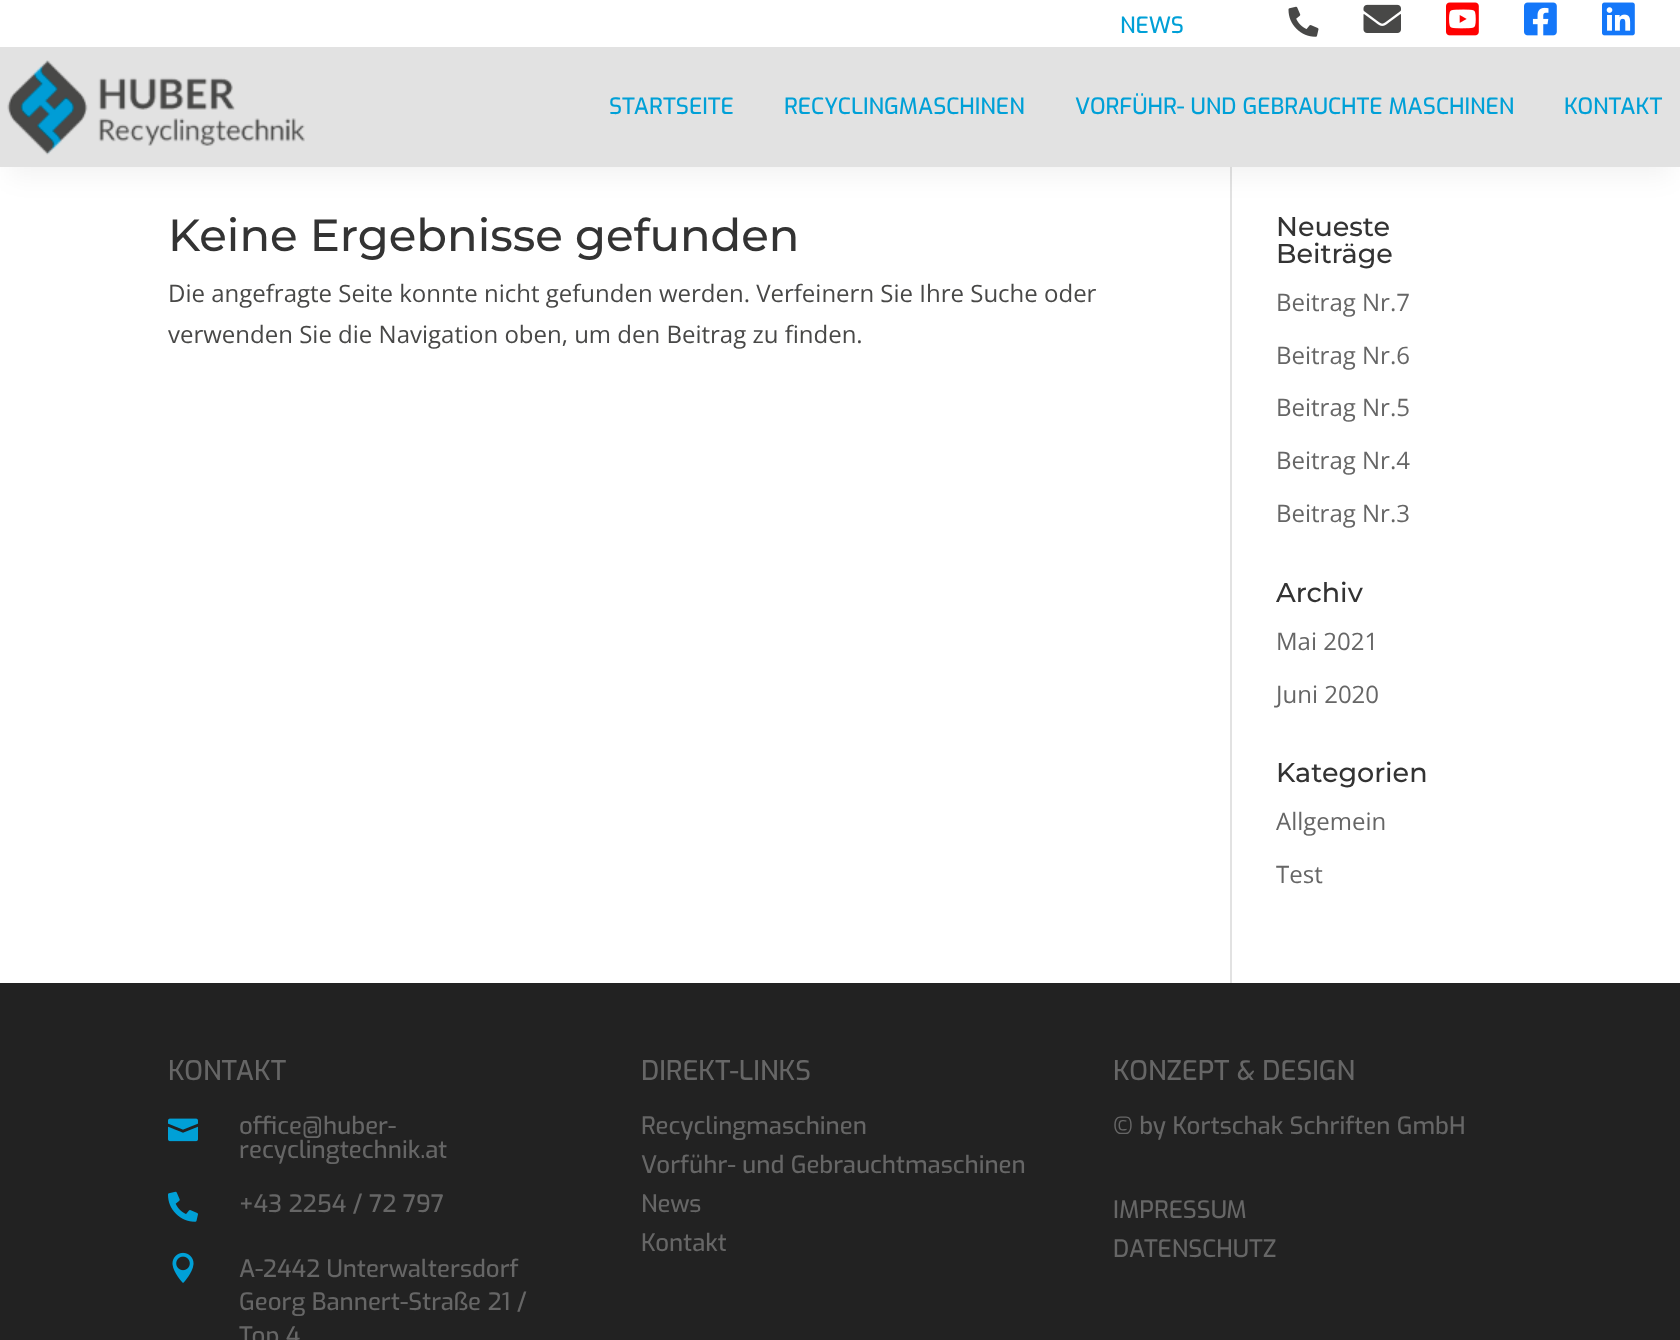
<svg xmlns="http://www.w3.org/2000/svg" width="1680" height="1340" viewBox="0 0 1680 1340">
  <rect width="100%" height="100%" fill="#fff"/>
  <image x="1288" y="6" width="31" height="31" href="img/1.png"/>
  <image x="1363" y="4" width="38" height="29" href="img/2.png"/>
  <image x="1446" y="2" width="33" height="34" href="img/3.png"/>
  <image x="1524" y="2" width="33" height="34" href="img/4.png"/>
  <image x="1602" y="2" width="33" height="34" href="img/5.png"/>
  <path d="M1230 167h2v816H1230z" fill="#e2e2e2"/>
  <path d="M9 74h1662v102H9z" fill="#0000000d" filter="blur(13.5px)"/>
  <path d="M0 47h1680v120H0z" fill="#e2e2e2"/>
  <image x="7" y="60" width="298" height="95" href="img/6.png"/>
  <path d="M0 983h1680v357H0z" fill="#222"/>
  <image x="168" y="1118" width="30" height="24" href="img/7.png"/>
  <image x="168" y="1191" width="30" height="31" href="img/8.png"/>
  <image x="172" y="1252" width="22" height="31" href="img/9.png"/>
  <g font-family="Exo" font-size="22.5" font-weight="500" fill="#00a0d7">
    <text x="1120" y="33">NEWS</text>
    <text x="609" y="114">STARTSEITE</text>
    <text x="784" y="114">RECYCLINGMASCHINEN</text>
    <text x="1075" y="114">VORFÜHR- UND GEBRAUCHTE MASCHINEN</text>
    <text x="1564" y="114">KONTAKT</text>
  </g>
  <text x="168" y="251" font-family="Montserrat" font-size="45" font-weight="100" fill="#333">Keine Ergebnisse gefunden</text>
  <g font-family="Open Sans" font-size="24" fill="#484847">
    <text x="168" y="302">Die angefragte Seite konnte nicht gefunden werden. Verfeinern Sie Ihre Suche oder</text>
    <text x="168" y="343">verwenden Sie die Navigation oben, um den Beitrag zu finden.</text>
  </g>
  <g font-family="Montserrat" font-size="27" font-weight="100" fill="#333">
    <text x="1276" y="236">Neueste</text>
    <text x="1276" y="263">Beiträge</text>
  </g>
  <g font-family="Open Sans" font-size="24" fill="#666">
    <text x="1276" y="311">Beitrag Nr.7</text>
    <text x="1276" y="364">Beitrag Nr.6</text>
    <text x="1276" y="416">Beitrag Nr.5</text>
    <text x="1276" y="469">Beitrag Nr.4</text>
    <text x="1276" y="522">Beitrag Nr.3</text>
  </g>
  <text x="1276" y="602" font-family="Montserrat" font-size="27" font-weight="100" fill="#333">Archiv</text>
  <g font-family="Open Sans" font-size="24" fill="#666">
    <text x="1276" y="650">Mai 2021</text>
    <text x="1276" y="703">Juni 2020</text>
  </g>
  <text x="1276" y="782" font-family="Montserrat" font-size="27" font-weight="100" fill="#333">Kategorien</text>
  <g font-family="Open Sans" font-size="24" fill="#666">
    <text x="1276" y="830">Allgemein</text>
    <text x="1276" y="883">Test</text>
  </g>
  <text x="168" y="1080" font-family="Exo" font-size="27" font-weight="500" fill="#666">KONTAKT</text>
  <g font-family="Exo" font-size="24" font-weight="500" fill="#666">
    <text x="239" y="1134">office@huber-</text>
    <text x="239" y="1158">recyclingtechnik.at</text>
    <text x="239" y="1212">+43 2254 / 72 797</text>
    <text x="239" y="1277">A-2442 Unterwaltersdorf</text>
    <text x="239" y="1310">Georg Bannert-Straße 21 /</text>
    <text x="239" y="1344">Top 4</text>
  </g>
  <text x="641" y="1080" font-family="Exo" font-size="27" font-weight="500" fill="#666">DIREKT-LINKS</text>
  <g font-family="Exo" font-size="24" font-weight="500" fill="#666">
    <text x="641" y="1134">Recyclingmaschinen</text>
    <text x="641" y="1173">Vorführ- und Gebrauchtmaschinen</text>
    <text x="641" y="1212">News</text>
    <text x="641" y="1251">Kontakt</text>
  </g>
  <text x="1113" y="1080" font-family="Exo" font-size="27" font-weight="500" fill="#666">KONZEPT &amp; DESIGN</text>
  <g font-family="Exo" font-size="24" font-weight="500" fill="#666">
    <text x="1113" y="1134">© by Kortschak Schriften GmbH</text>
    <text x="1113" y="1218">IMPRESSUM</text>
    <text x="1113" y="1257">DATENSCHUTZ</text>
  </g>
</svg>
